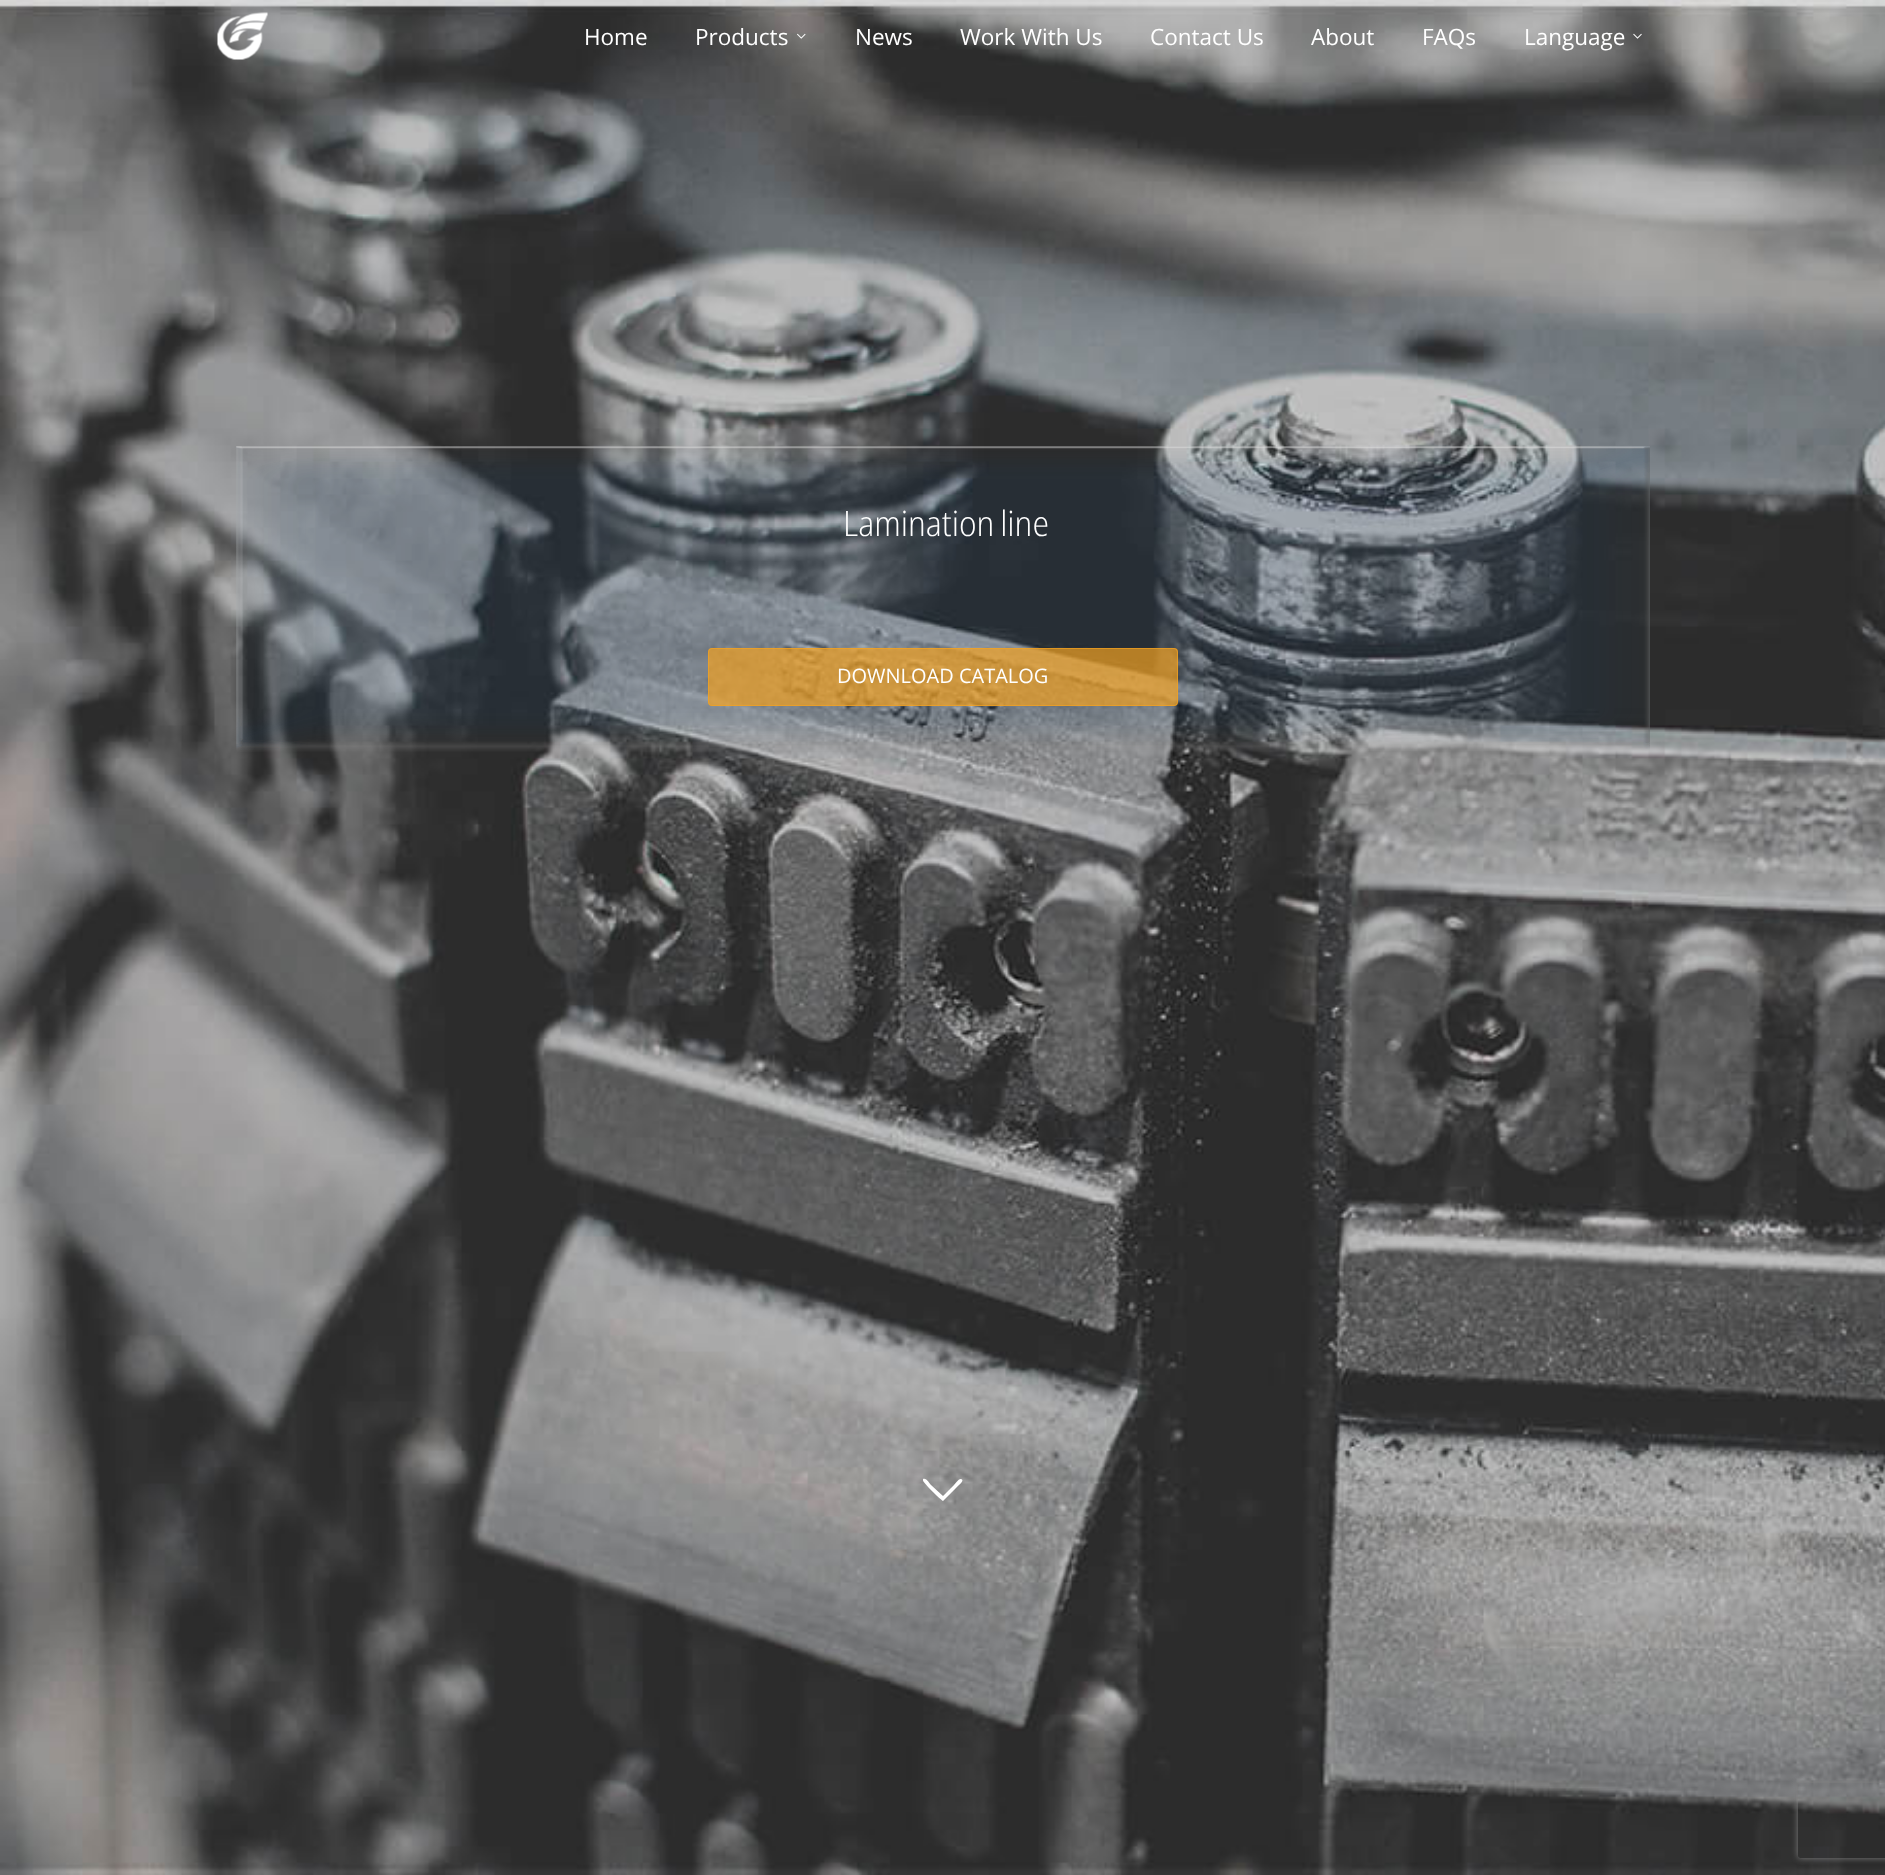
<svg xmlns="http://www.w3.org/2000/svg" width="1885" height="1875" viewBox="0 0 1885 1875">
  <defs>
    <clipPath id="clip1"><path d="M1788 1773H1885V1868H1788ZM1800.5 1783H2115.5C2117 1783 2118 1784 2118 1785.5V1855.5C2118 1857 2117 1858 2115.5 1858H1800.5C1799 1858 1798 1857 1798 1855.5V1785.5C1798 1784 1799 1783 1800.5 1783Z" clip-rule="evenodd"/></clipPath>
  </defs>
  <rect width="100%" height="100%" fill="#fff"/>
  <image x="0" y="0" width="1885" height="1875" href="img/4.png"/>
  <image x="217" y="12" width="51" height="48" href="img/1.png"/>
  <image x="797" y="33" width="9" height="6" href="img/2.png"/>
  <image x="1633" y="33" width="9" height="6" href="img/3.png"/>
  <image x="236" y="446" width="1414" height="306" href="img/5.png"/>
  <rect x="708" y="648" width="470" height="58" rx="4" fill="#f5a220b0"/>
  <rect x="708.5" y="648.5" width="469" height="57" rx="3.5" fill="none" stroke="#f5a220ab"/>
  <path d="M943 1501C940 1499 922 1482 923 1480V1479C926 1477 930 1484 931 1485L943 1496L954 1485C955 1484 959 1478 961 1479C965 1480 960 1484 956 1488Z" fill="#fff"/>
  <g clip-path="url(#clip1)">
    <rect x="1798" y="1783" width="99" height="75" rx="2.5" fill="#808080" filter="blur(3px)"/>
  </g>
  <g font-family="Open Sans" font-size="22.5" fill="#fff">
    <text x="584" y="45">Home</text>
    <text x="695" y="45">Products</text>
    <text x="855" y="45">News</text>
    <text x="960" y="45">Work With Us</text>
    <text x="1150" y="45">Contact Us</text>
    <text x="1311" y="45">About</text>
    <text x="1422" y="45">FAQs</text>
    <text x="1524" y="45">Language</text>
  </g>
  <text x="843" y="536" word-spacing="-2" font-family="Open Sans" font-size="35" font-weight="300" fill="#fff">Lamination line</text>
  <text x="837" y="683" font-family="Open Sans" font-size="20" fill="#fff">DOWNLOAD CATALOG</text>
</svg>
